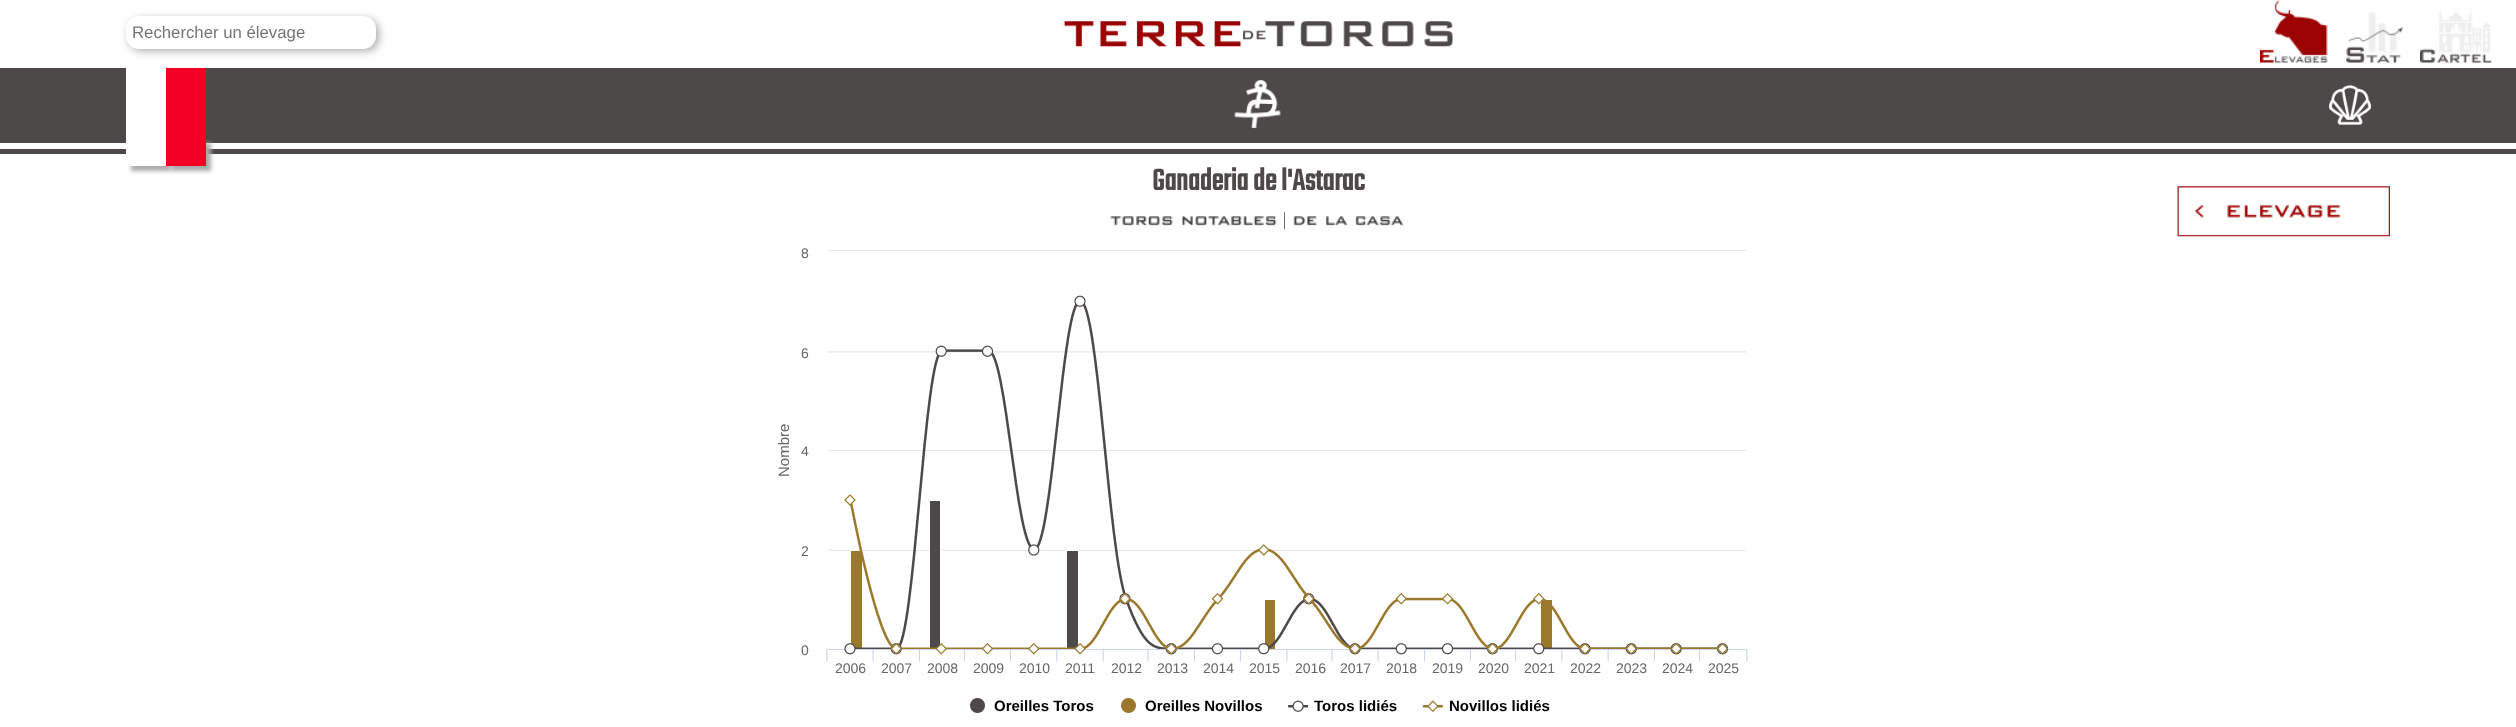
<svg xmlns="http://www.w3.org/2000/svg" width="2516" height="727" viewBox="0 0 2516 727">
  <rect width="100%" height="100%" fill="#fff"/>
  <rect x="129" y="19" width="250" height="32" rx="13" fill="#aaa" filter="blur(4px)"/>
  <rect x="126" y="16" width="250" height="33" rx="13" fill="#fff"/>
  <image x="1063" y="21" width="390" height="26" href="img/1.png"/>
  <image x="2260" y="0" width="68" height="63" href="img/2.png"/>
  <image x="2346" y="12" width="57" height="51" href="img/3.png"/>
  <image x="2420" y="6" width="72" height="57" href="img/4.png"/>
  <path d="M0 68h2516v75H0z" fill="#4d4948"/>
  <image x="1234" y="80" width="47" height="49" href="img/5.png"/>
  <image x="2328" y="85" width="44" height="40" href="img/6.png"/>
  <path d="M0 149h2516v5H0z" fill="#4d4948"/>
  <path d="M126 68h40v70H126z" fill="#fff"/>
  <path d="M166 68h40v70H166z" fill="#f40025"/>
  <path d="M131 143h40v28H131z" fill="#aaa" filter="blur(2px)"/>
  <path d="M126 138h40v28H126z" fill="#fff"/>
  <path d="M171 143h40v28H171z" fill="#aaa" filter="blur(2px)"/>
  <path d="M166 138h40v28H166z" fill="#f40025"/>
  <image x="1110" y="216" width="167" height="10" href="img/7.png"/>
  <image x="1284" y="211" width="1" height="19" href="img/8.png"/>
  <image x="1293" y="216" width="111" height="10" href="img/9.png"/>
  <image x="2177" y="186" width="213" height="51" href="img/10.png"/>
  <image x="826" y="250" width="922" height="463" href="img/11.png"/>
  <text x="132" y="38" font-family="Liberation Sans" font-size="16.75" fill="#757575">Rechercher un élevage</text>
  <text x="1152" y="190" font-family="Teko" font-size="32.5" font-weight="bold" fill="#4d4948">Ganaderia de l'Astarac</text>
  <g font-family="Liberation Sans" font-size="14" fill="#666">
    <text x="801" y="258">8</text>
    <text x="801" y="358">6</text>
  </g>
  <text x="789" y="477" transform="rotate(-90 789 477)" font-family="Liberation Sans" font-size="15" fill="#666">Nombre</text>
  <g font-family="Liberation Sans" font-size="14" fill="#666">
    <text x="801" y="456">4</text>
    <text x="801" y="556">2</text>
    <text x="801" y="655">0</text>
    <text x="835" y="673">2006</text>
    <text x="881" y="673">2007</text>
    <text x="927" y="673">2008</text>
    <text x="973" y="673">2009</text>
    <text x="1019" y="673">2010</text>
    <text x="1065" y="673">2011</text>
    <text x="1111" y="673">2012</text>
    <text x="1157" y="673">2013</text>
    <text x="1203" y="673">2014</text>
    <text x="1249" y="673">2015</text>
    <text x="1295" y="673">2016</text>
    <text x="1340" y="673">2017</text>
    <text x="1386" y="673">2018</text>
    <text x="1432" y="673">2019</text>
    <text x="1478" y="673">2020</text>
    <text x="1524" y="673">2021</text>
    <text x="1570" y="673">2022</text>
    <text x="1616" y="673">2023</text>
    <text x="1662" y="673">2024</text>
    <text x="1708" y="673">2025</text>
  </g>
  <g font-family="Liberation Sans" font-size="15" font-weight="bold" fill="#000">
    <text x="994" y="711">Oreilles Toros</text>
    <text x="1145" y="711">Oreilles Novillos</text>
    <text x="1314" y="711">Toros lidiés</text>
    <text x="1449" y="711">Novillos lidiés</text>
  </g>
</svg>
